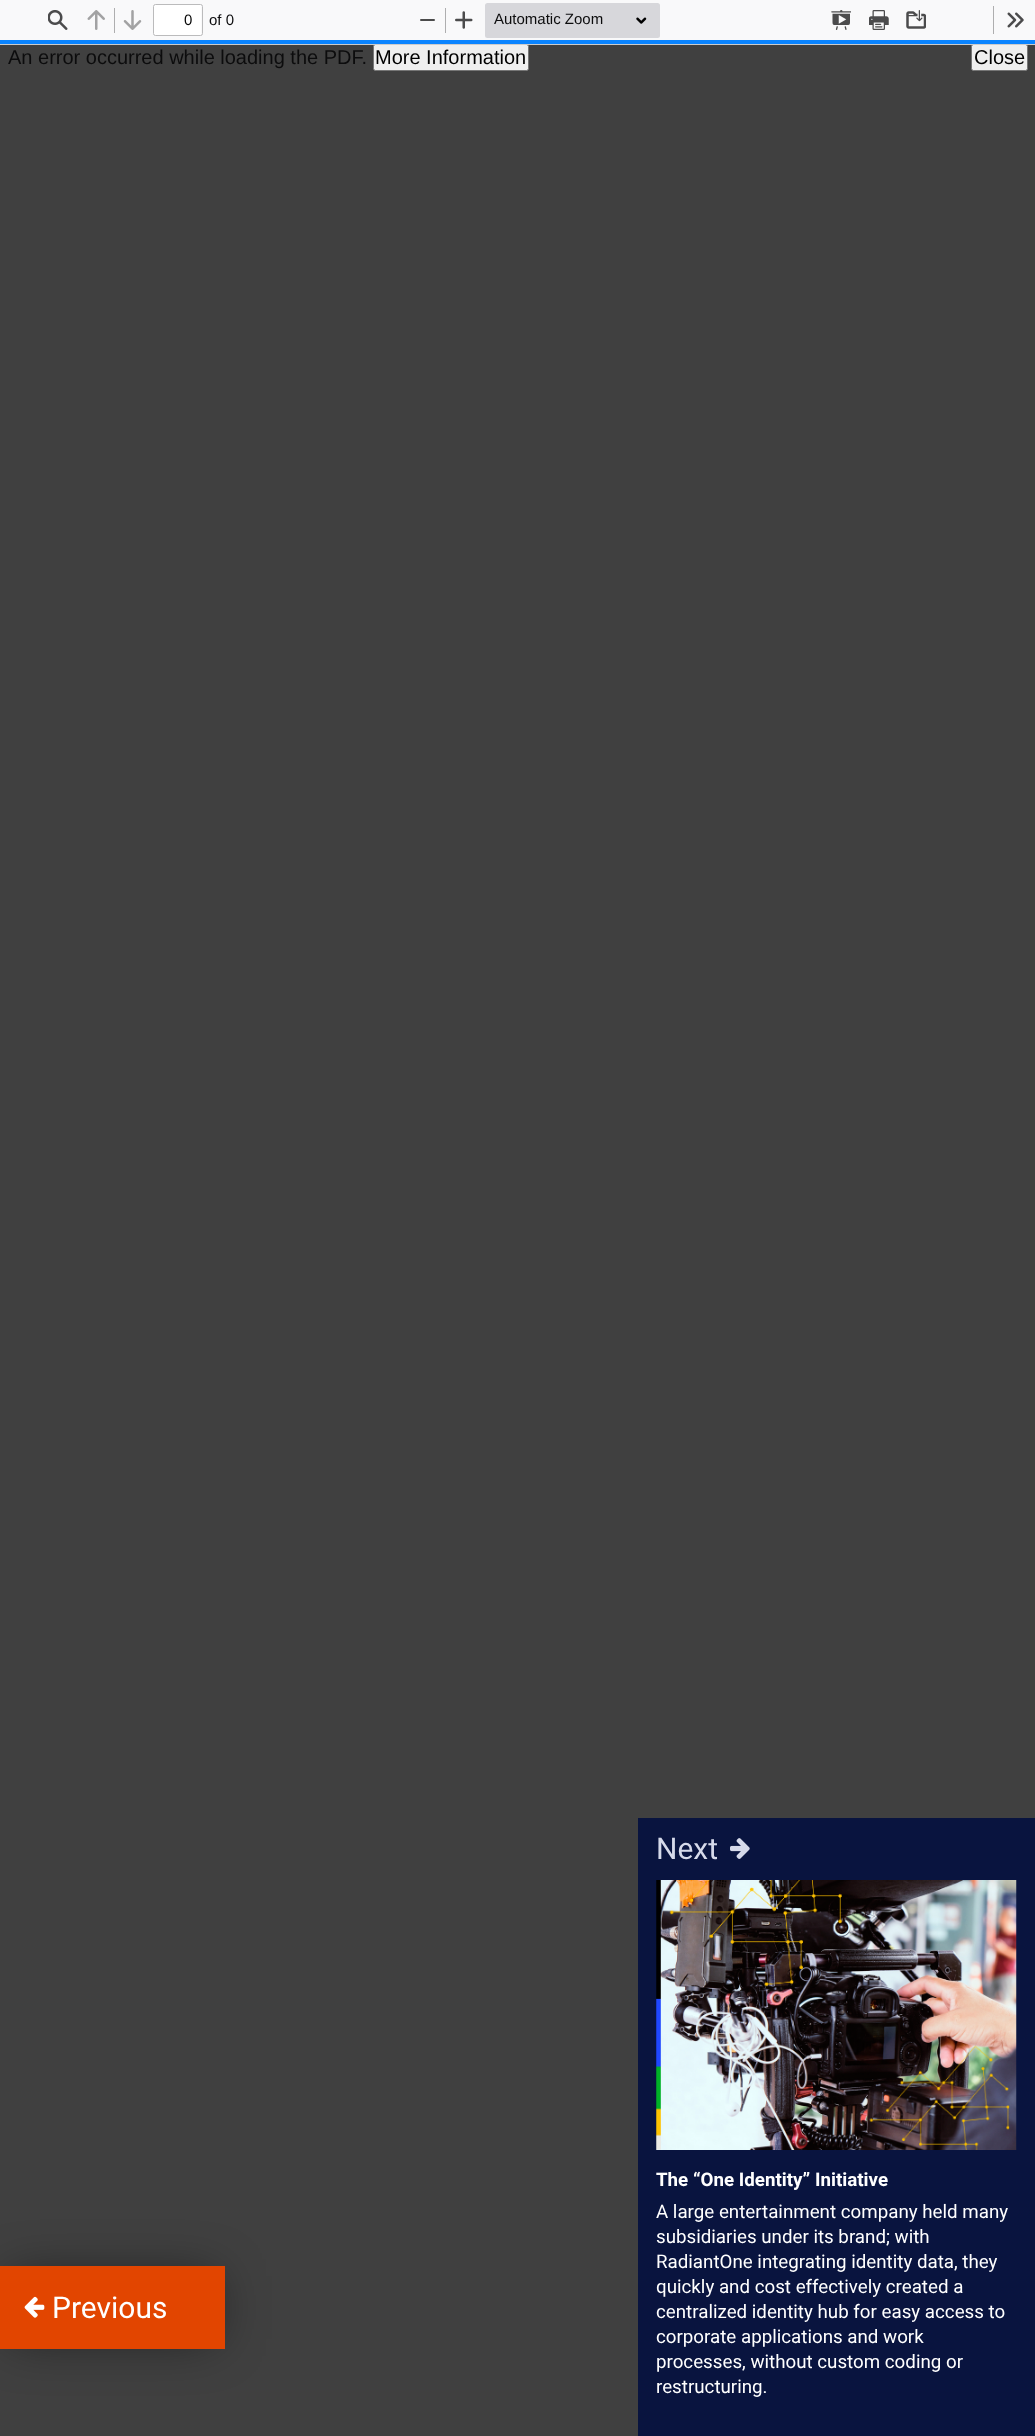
<svg xmlns="http://www.w3.org/2000/svg" width="1035" height="2436" viewBox="0 0 1035 2436">
  <rect width="100%" height="100%" fill="#404040"/>
  <path d="M0 0h1035v40H0z" fill="#f9f9fa"/>
  <image x="48" y="10" width="20" height="20" href="img/1.png"/>
  <image x="87" y="10" width="18" height="20" href="img/2.png"/>
  <path d="M114 8h1v25H114z" fill="#aeaeaf"/>
  <image x="123" y="10" width="19" height="20" href="img/3.png"/>
  <rect x="154" y="5" width="47" height="30" rx="1" fill="#fff"/>
  <rect x="153.5" y="4.5" width="49" height="31" rx="2" fill="none" stroke="#bbbbbc"/>
  <rect x="420" y="19" width="15" height="2" rx="1" fill="#4b4b4b"/>
  <path d="M445 8h1v25H445z" fill="#aeaeaf"/>
  <image x="455" y="11" width="18" height="18" href="img/4.png"/>
  <rect x="485" y="3" width="175" height="35" rx="2.5" fill="#d7d7db"/>
  <image x="636" y="17" width="11" height="7" href="img/5.png"/>
  <image x="831" y="10" width="20" height="20" href="img/6.png"/>
  <image x="869" y="10" width="20" height="20" href="img/7.png"/>
  <image x="906" y="10" width="20" height="19" href="img/8.png"/>
  <path d="M993 6h1v28H993z" fill="#aeaeaf"/>
  <image x="1007" y="12" width="17" height="16" href="img/9.png"/>
  <rect x="373.5" y="44.5" width="155" height="26" rx="2" fill="#efefef" stroke="#767676"/>
  <rect x="971.5" y="44.5" width="56" height="26" rx="2" fill="#efefef" stroke="#767676"/>
  <path d="M0 44h1035v1H0z" fill="#ccc"/>
  <path d="M0 40h1035v4H0z" fill="#0a84ff"/>
  <path d="M10 2276h205v63H10z" fill="#00000080" filter="blur(25px)"/>
  <path d="M0 2266h225v83H0z" fill="#e24500"/>
  <image x="24" y="2296" width="21" height="22" href="img/10.png"/>
  <path d="M638 1818h397v618H638z" fill="#09143f"/>
  <image x="730" y="1838" width="20" height="21" href="img/11.png"/>
  <image x="656" y="1880" width="361" height="270" href="img/12.png"/>
  <text x="184" y="25" font-family="Liberation Sans" font-size="15" fill="#060606">0</text>
  <g font-family="Liberation Sans" font-size="15" fill="#0c0c0d">
    <text x="209" y="25">of 0</text>
    <text x="494" y="24">Automatic Zoom</text>
  </g>
  <text x="8" y="64" font-family="Liberation Sans" font-size="20" fill="#0c0c0d">An error occurred while loading the PDF.</text>
  <g font-family="Liberation Sans" font-size="20" fill="#000">
    <text x="375" y="64">More Information</text>
    <text x="974" y="64">Close</text>
  </g>
  <text x="52" y="2318" font-family="Roboto" font-size="30" fill="#fff">Previous</text>
  <text x="656" y="1859" font-family="Roboto" font-size="30" fill="#d6daea">Next</text>
  <text x="656" y="2186" font-family="Roboto" font-size="18.75" font-weight="bold" fill="#fff">The “One Identity” Initiative</text>
  <g font-family="Roboto" font-size="18.75" fill="#fff">
    <text x="656" y="2218">A large entertainment company held many</text>
    <text x="656" y="2243">subsidiaries under its brand; with</text>
    <text x="656" y="2268">RadiantOne integrating identity data, they</text>
    <text x="656" y="2293">quickly and cost effectively created a</text>
    <text x="656" y="2318">centralized identity hub for easy access to</text>
    <text x="656" y="2343">corporate applications and work</text>
    <text x="656" y="2368">processes, without custom coding or</text>
    <text x="656" y="2393">restructuring.</text>
  </g>
</svg>
